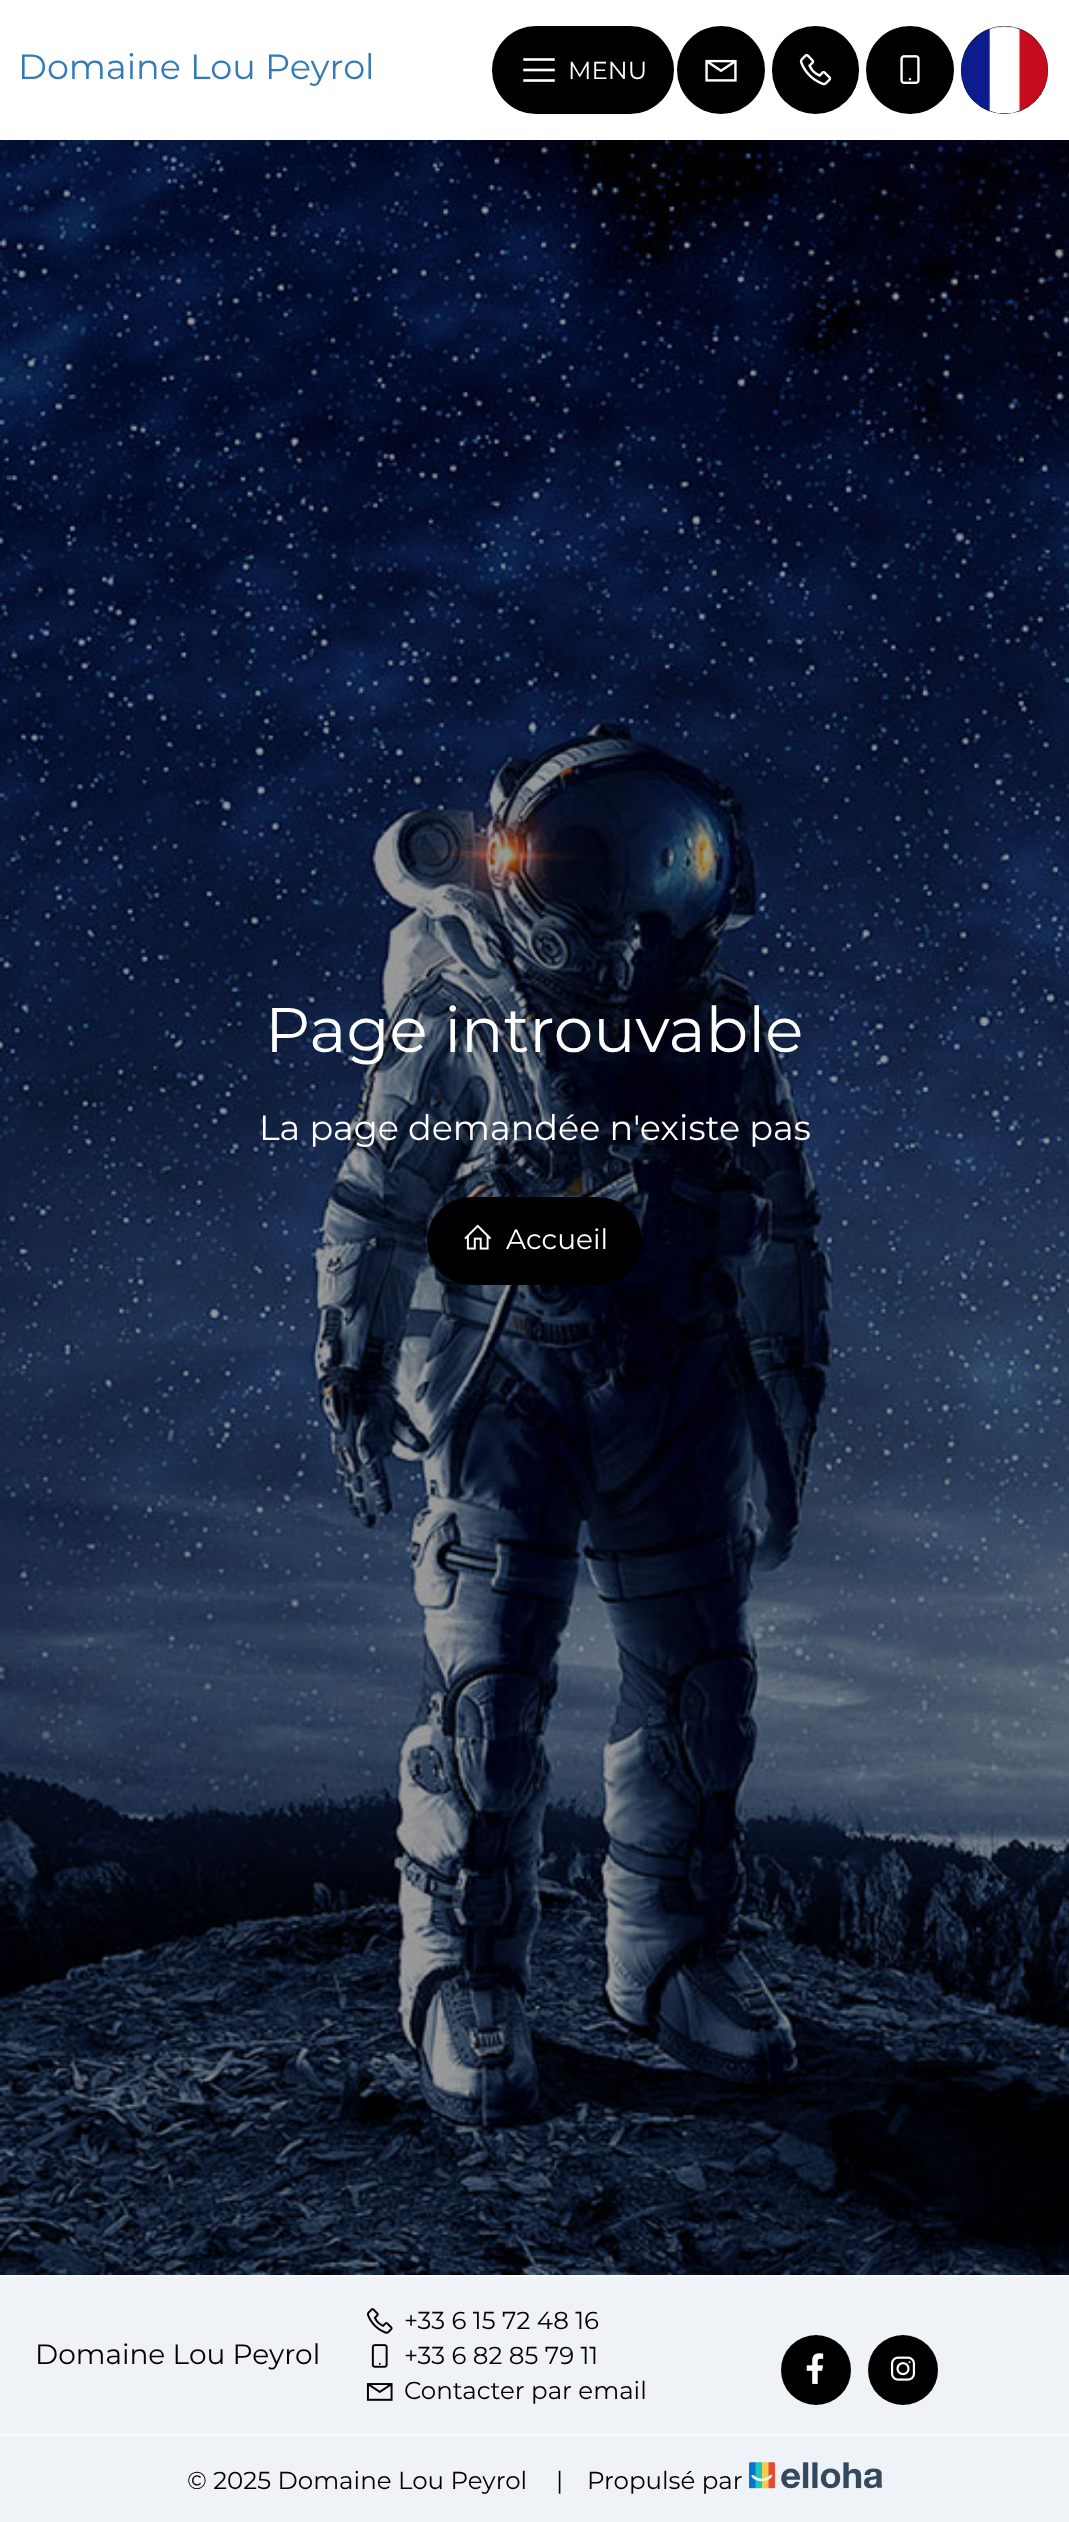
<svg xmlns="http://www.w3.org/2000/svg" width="1069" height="2522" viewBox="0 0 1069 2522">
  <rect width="100%" height="100%" fill="#fff"/>
  <image x="0" y="140" width="1069" height="2135" href="img/6.png"/>
  <path d="M7 0h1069v140H7z" fill="#0000001a" filter="blur(13px)"/>
  <path d="M0 0h1069v140H0z" fill="#fff"/>
  <rect x="492" y="26" width="182" height="88" rx="44" fill="#000"/>
  <image x="523" y="58" width="32" height="24" href="img/1.png"/>
  <circle cx="721" cy="70" r="44" fill="#000"/>
  <image x="705" y="59" width="32" height="23" href="img/2.png"/>
  <rect x="772" y="26" width="87" height="88" rx="43.5" fill="#000"/>
  <image x="799" y="53" width="33" height="33" href="img/3.png"/>
  <circle cx="910" cy="70" r="44" fill="#000"/>
  <image x="900" y="55" width="20" height="29" href="img/4.png"/>
  <rect x="961" y="26" width="87" height="88" rx="43.5" fill="#000"/>
  <image x="960" y="26" width="89" height="88" href="img/5.png"/>
  <rect x="427" y="1197" width="215" height="88" rx="44" fill="#000"/>
  <image x="464" y="1224" width="28" height="26" href="img/7.png"/>
  <path d="M0 2277h1069v157H0z" fill="#eff2f6"/>
  <path d="M0 2275h1069v2H0z" fill="#fafbfc"/>
  <path d="M0 2434h1069v2H0z" fill="#fafbfc"/>
  <image x="366" y="2308" width="27" height="26" href="img/8.png"/>
  <image x="371" y="2344" width="17" height="24" href="img/9.png"/>
  <image x="366" y="2383" width="27" height="18" href="img/10.png"/>
  <circle cx="816" cy="2370" r="35" fill="#000"/>
  <image x="806" y="2353" width="18" height="31" href="img/11.png"/>
  <circle cx="903" cy="2370" r="35" fill="#000"/>
  <image x="890" y="2356" width="26" height="25" href="img/12.png"/>
  <path d="M0 2436h1069v86H0z" fill="#eff2f6"/>
  <image x="749" y="2462" width="133" height="27" href="img/13.png"/>
  <text x="18" y="79" font-family="Montserrat" font-size="35" font-weight="100" fill="#337ab7">Domaine Lou Peyrol</text>
  <text x="568" y="79" font-family="Montserrat" font-size="24.5" font-weight="100" fill="#fff">MENU</text>
  <text x="265" y="1052" font-family="Montserrat" font-size="63" font-weight="100" fill="#fff">Page introuvable</text>
  <text x="259" y="1140" font-family="Montserrat" font-size="35" font-weight="100" fill="#fff">La page demandée n'existe pas</text>
  <text x="506" y="1249" font-family="Montserrat" font-size="28" font-weight="100" fill="#fff">Accueil</text>
  <text x="35" y="2364" font-family="Montserrat" font-size="28" font-weight="100" fill="#000">Domaine Lou Peyrol</text>
  <g font-family="Montserrat" font-size="24.5" font-weight="100" fill="#000">
    <text x="404" y="2329">+33 6 15 72 48 16</text>
    <text x="404" y="2364">+33 6 82 85 79 11</text>
    <text x="404" y="2399">Contacter par email</text>
    <text x="187" y="2489">© 2025 Domaine Lou Peyrol</text>
    <text x="556" y="2489">|</text>
    <text x="587" y="2489">Propulsé par</text>
  </g>
</svg>
